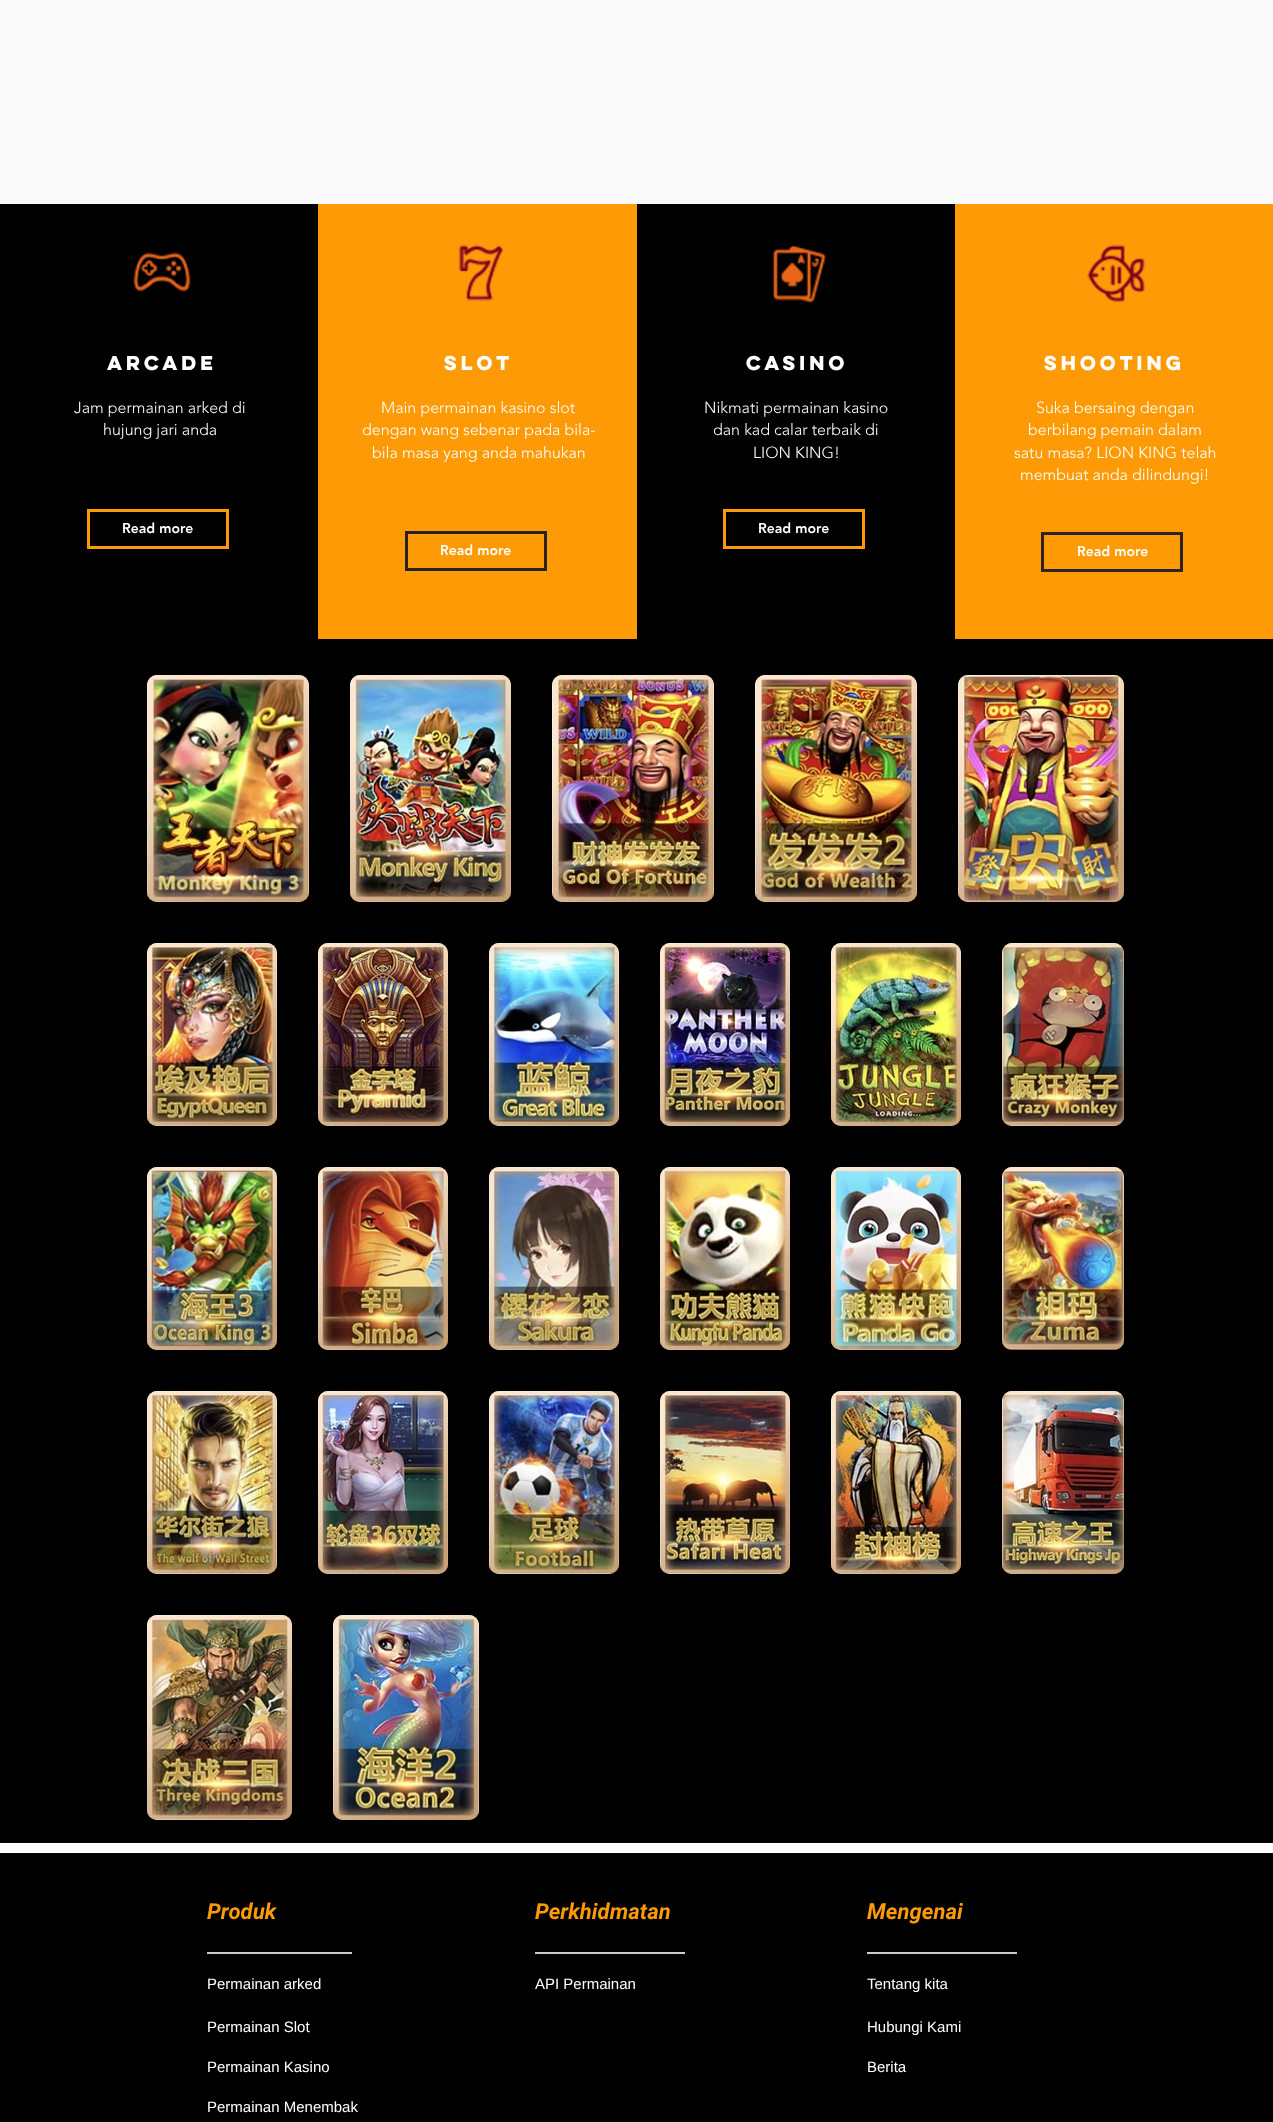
<svg xmlns="http://www.w3.org/2000/svg" width="1273" height="2122" viewBox="0 0 1273 2122">
  <rect width="100%" height="100%" fill="#fff"/>
  <path d="M0 0h1273v204H0z" fill="#fafafa"/>
  <path d="M0 204h318v435H0z" fill="#000"/>
  <image x="133" y="252" width="58" height="40" href="img/1.png"/>
  <path d="M88.5 510.5h139v37H88.5z" fill="none" stroke="#fd9a05" stroke-width="3"/>
  <path d="M318 204h319v435H318z" fill="#fd9a05"/>
  <image x="458" y="244" width="46" height="57" href="img/2.png"/>
  <path d="M406.5 532.5h139v37H406.5z" fill="none" stroke="#292325" stroke-width="3"/>
  <path d="M637 204h318v435H637z" fill="#000"/>
  <image x="772" y="245" width="55" height="58" href="img/3.png"/>
  <path d="M724.5 510.5h139v37H724.5z" fill="none" stroke="#fd9a05" stroke-width="3"/>
  <path d="M955 204h318v435H955z" fill="#fd9a05"/>
  <image x="1087" y="244" width="58" height="59" href="img/4.png"/>
  <path d="M1042.5 533.5h139v37H1042.5z" fill="none" stroke="#292325" stroke-width="3"/>
  <path d="M0 639h1273v1204H0z" fill="#000"/>
  <image x="147" y="675" width="162" height="227" href="img/5.png"/>
  <image x="147" y="675" width="162" height="227" href="img/6.png"/>
  <image x="350" y="675" width="161" height="227" href="img/7.png"/>
  <image x="350" y="675" width="161" height="227" href="img/8.png"/>
  <image x="552" y="675" width="162" height="227" href="img/9.png"/>
  <image x="552" y="675" width="162" height="227" href="img/10.png"/>
  <image x="755" y="675" width="162" height="227" href="img/11.png"/>
  <image x="755" y="675" width="162" height="227" href="img/12.png"/>
  <image x="958" y="675" width="166" height="227" href="img/13.png"/>
  <image x="958" y="675" width="166" height="227" href="img/14.png"/>
  <image x="147" y="943" width="130" height="183" href="img/15.png"/>
  <image x="147" y="943" width="130" height="183" href="img/16.png"/>
  <image x="318" y="943" width="130" height="183" href="img/17.png"/>
  <image x="318" y="943" width="130" height="183" href="img/18.png"/>
  <image x="489" y="943" width="130" height="183" href="img/19.png"/>
  <image x="489" y="943" width="130" height="183" href="img/20.png"/>
  <image x="660" y="943" width="130" height="183" href="img/21.png"/>
  <image x="660" y="943" width="130" height="183" href="img/22.png"/>
  <image x="831" y="943" width="130" height="183" href="img/23.png"/>
  <image x="831" y="943" width="130" height="183" href="img/24.png"/>
  <image x="1002" y="943" width="122" height="183" href="img/25.png"/>
  <image x="1002" y="943" width="122" height="183" href="img/26.png"/>
  <image x="147" y="1167" width="130" height="183" href="img/27.png"/>
  <image x="147" y="1167" width="130" height="183" href="img/28.png"/>
  <image x="318" y="1167" width="130" height="183" href="img/29.png"/>
  <image x="318" y="1167" width="130" height="183" href="img/30.png"/>
  <image x="489" y="1167" width="130" height="183" href="img/31.png"/>
  <image x="489" y="1167" width="130" height="183" href="img/32.png"/>
  <image x="660" y="1167" width="130" height="183" href="img/33.png"/>
  <image x="660" y="1167" width="130" height="183" href="img/34.png"/>
  <image x="831" y="1167" width="130" height="183" href="img/35.png"/>
  <image x="831" y="1167" width="130" height="183" href="img/36.png"/>
  <image x="1002" y="1167" width="122" height="183" href="img/37.png"/>
  <image x="1002" y="1167" width="122" height="183" href="img/38.png"/>
  <image x="147" y="1391" width="130" height="183" href="img/39.png"/>
  <image x="147" y="1391" width="130" height="183" href="img/40.png"/>
  <image x="318" y="1391" width="130" height="183" href="img/41.png"/>
  <image x="318" y="1391" width="130" height="183" href="img/42.png"/>
  <image x="489" y="1391" width="130" height="183" href="img/43.png"/>
  <image x="489" y="1391" width="130" height="183" href="img/44.png"/>
  <image x="660" y="1391" width="130" height="183" href="img/45.png"/>
  <image x="660" y="1391" width="130" height="183" href="img/46.png"/>
  <image x="831" y="1391" width="130" height="183" href="img/47.png"/>
  <image x="831" y="1391" width="130" height="183" href="img/48.png"/>
  <image x="1002" y="1391" width="122" height="183" href="img/49.png"/>
  <image x="1002" y="1391" width="122" height="183" href="img/50.png"/>
  <image x="147" y="1615" width="145" height="205" href="img/51.png"/>
  <image x="147" y="1615" width="145" height="205" href="img/52.png"/>
  <image x="333" y="1615" width="146" height="205" href="img/53.png"/>
  <image x="333" y="1615" width="146" height="205" href="img/54.png"/>
  <path d="M0 1853h1273v269H0z" fill="#000"/>
  <path d="M207 1952h145v2H207z" fill="#ccc"/>
  <path d="M535 1952h150v2H535z" fill="#ccc"/>
  <path d="M867 1952h150v2H867z" fill="#ccc"/>
  <text x="107" y="370" font-family="'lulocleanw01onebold'" font-size="18" font-weight="bold" fill="#fff">Arcade</text>
  <g font-family="'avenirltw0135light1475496'" font-size="16" font-weight="300" fill="#fff">
    <text x="74" y="413">Jam permainan arked di</text>
    <text x="103" y="435">hujung jari anda</text>
  </g>
  <text x="122" y="533" font-family="'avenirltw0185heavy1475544'" font-size="14" font-weight="900" fill="#fff">Read more</text>
  <text x="444" y="370" font-family="'lulocleanw01onebold'" font-size="18" font-weight="bold" fill="#fff">SLOT</text>
  <g font-family="'avenirltw0135light1475496'" font-size="16" font-weight="300" fill="#fff">
    <text x="381" y="413">Main permainan kasino slot</text>
    <text x="362" y="435">dengan wang sebenar pada bila-</text>
    <text x="372" y="458">bila masa yang anda mahukan</text>
  </g>
  <text x="440" y="555" font-family="'avenirltw0185heavy1475544'" font-size="14" font-weight="900" fill="#fff">Read more</text>
  <text x="746" y="370" font-family="'lulocleanw01onebold'" font-size="18" font-weight="bold" fill="#fff">CASINO</text>
  <g font-family="'avenirltw0135light1475496'" font-size="16" font-weight="300" fill="#fff">
    <text x="704" y="413">Nikmati permainan kasino</text>
    <text x="713" y="435">dan kad calar terbaik di</text>
    <text x="753" y="458">LION KING!</text>
  </g>
  <text x="758" y="533" font-family="'avenirltw0185heavy1475544'" font-size="14" font-weight="900" fill="#fff">Read more</text>
  <text x="1044" y="370" font-family="'lulocleanw01onebold'" font-size="18" font-weight="bold" fill="#fff">Shooting</text>
  <g font-family="'avenirltw0135light1475496'" font-size="16" font-weight="300" fill="#fff">
    <text x="1036" y="413">Suka bersaing dengan</text>
    <text x="1028" y="435">berbilang pemain dalam</text>
    <text x="1014" y="458">satu masa? LION KING telah</text>
    <text x="1020" y="480">membuat anda dilindungi!</text>
  </g>
  <text x="1077" y="556" font-family="'avenirltw0185heavy1475544'" font-size="14" font-weight="900" fill="#fff">Read more</text>
  <g font-family="Roboto" font-size="22" font-weight="bold" font-style="italic" fill="#fd9a05">
    <text x="207" y="1919">Produk</text>
    <text x="535" y="1919">Perkhidmatan</text>
    <text x="867" y="1919">Mengenai</text>
  </g>
  <g font-family="Liberation Sans" font-size="15" fill="#fff">
    <text x="207" y="1989">Permainan arked</text>
    <text x="535" y="1989">API Permainan</text>
    <text x="867" y="1989">Tentang kita</text>
    <text x="207" y="2032">Permainan Slot</text>
    <text x="867" y="2032">Hubungi Kami</text>
    <text x="207" y="2072">Permainan Kasino</text>
    <text x="867" y="2072">Berita</text>
    <text x="207" y="2112">Permainan Menembak</text>
  </g>
</svg>
